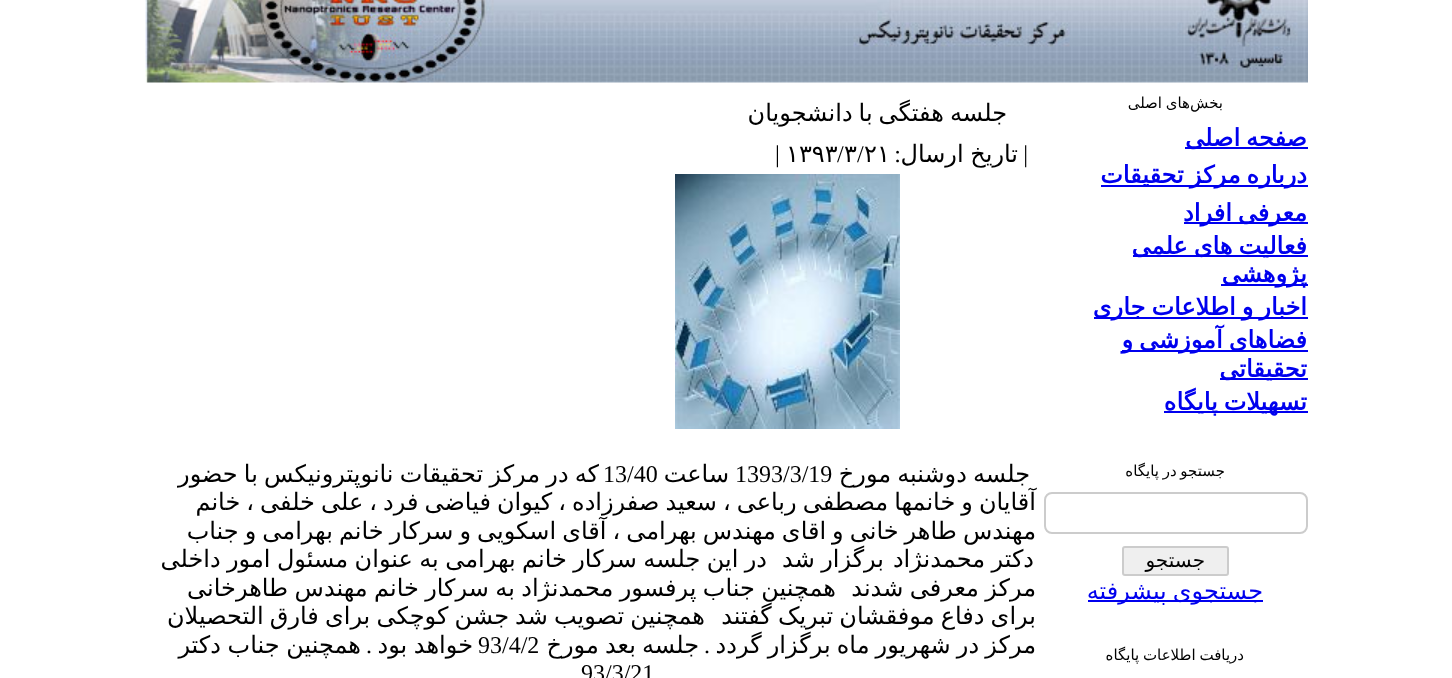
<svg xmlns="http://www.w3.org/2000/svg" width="1452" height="678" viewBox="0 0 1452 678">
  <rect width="100%" height="100%" fill="#fff"/>
  <image x="145" y="0" width="1163" height="83" href="img/1.png"/>
  <path d="M1185 147h123v2H1185z" fill="#00e"/>
  <path d="M1101 185h207v2H1101z" fill="#00e"/>
  <path d="M1184 222h124v2H1184z" fill="#00e"/>
  <path d="M1133 255h175v2H1133z" fill="#00e"/>
  <path d="M1221 284h87v2H1221z" fill="#00e"/>
  <path d="M1094 317h214v2H1094z" fill="#00e"/>
  <path d="M1122 350h186v2H1122z" fill="#00e"/>
  <path d="M1220 378h88v2H1220z" fill="#00e"/>
  <path d="M1164 411h144v2H1164z" fill="#00e"/>
  <rect x="1123" y="547" width="105" height="28" rx="2" fill="#efefef" stroke="#ccc" stroke-width="2"/>
  <path d="M1088 600h175v2H1088z" fill="#00e"/>
  <image x="675" y="174" width="225" height="255" href="img/2.png"/>
  <g font-family="DejaVu Sans" font-size="15" direction="rtl" fill="#000">
    <text x="1190" y="108" word-spacing="-1">های اصلی</text>
    <text x="1223" y="108">بخش</text>
  </g>
  <g font-family="DejaVu Sans" font-size="24" font-weight="bold" direction="rtl" fill="#00e">
    <text x="1307" y="146" word-spacing="-1.6">صفحه اصلی</text>
    <text x="1307" y="183" word-spacing="-1.6">درباره مرکز تحقیقات</text>
    <text x="1307" y="221" word-spacing="-1.6">معرفی افراد</text>
    <text x="1307" y="254" word-spacing="-1.6">فعالیت های علمی</text>
    <text x="1307" y="282">پژوهشی</text>
    <text x="1307" y="315" word-spacing="-1.6">اخبار و اطلاعات جاری</text>
    <text x="1307" y="348" word-spacing="-1.6">فضاهای آموزشی و</text>
    <text x="1307" y="377">تحقیقاتی</text>
    <text x="1307" y="410" word-spacing="-1.6">تسهیلات پایگاه</text>
  </g>
  <text x="1225" y="476" word-spacing="-1" font-family="DejaVu Sans" font-size="15" direction="rtl" fill="#000">جستجو در پایگاه</text>
  <text x="1205" y="567" font-family="DejaVu Sans" font-size="20" direction="rtl" fill="#000">جستجو</text>
  <text x="1263" y="599" word-spacing="-1.6" font-family="DejaVu Sans" font-size="24" direction="rtl" fill="#00e">جستجوی پیشرفته</text>
  <text x="1244" y="660" word-spacing="-1" font-family="DejaVu Sans" font-size="15" direction="rtl" fill="#000">دریافت اطلاعات پایگاه</text>
  <text x="1007" y="121" word-spacing="-1.6" font-family="DejaVu Sans" font-size="24" direction="rtl" fill="#000">جلسه هفتگی با دانشجویان</text>
  <text x="1028" y="162" font-family="Liberation Serif" font-size="24" direction="rtl" fill="#000">|</text>
  <text x="1018" y="162" word-spacing="-1" font-family="DejaVu Sans" font-size="24" direction="rtl" fill="#000">تاریخ ارسال</text>
  <text x="901" y="162" font-family="Liberation Serif" font-size="24" direction="rtl" fill="#000">:</text>
  <text x="864" y="162" font-family="DejaVu Sans" font-size="24" fill="#000">۲۱</text>
  <text x="837" y="162" font-family="Liberation Serif" font-size="24" fill="#000">/</text>
  <text x="844" y="162" font-family="DejaVu Sans" font-size="24" fill="#000">۳</text>
  <text x="857" y="162" font-family="Liberation Serif" font-size="24" fill="#000">/</text>
  <text x="786" y="162" font-family="DejaVu Sans" font-size="24" fill="#000">۱۳۹۳</text>
  <text x="775" y="162" font-family="Liberation Serif" font-size="24" fill="#000">|</text>
  <text x="1030" y="482" word-spacing="-1.6" font-family="DejaVu Sans" font-size="24" direction="rtl" fill="#000">جلسه دوشنبه مورخ</text>
  <text x="735" y="482" font-family="Liberation Serif" font-size="24" fill="#000">1393/3/19</text>
  <g font-family="DejaVu Sans" font-size="24" direction="rtl" fill="#000">
    <text x="729" y="482">ساعت</text>
    <text x="599" y="482" word-spacing="-1.5">که در مرکز تحقیقات نانوپترونیکس با حضور</text>
  </g>
  <text x="603" y="482" font-family="Liberation Serif" font-size="24" fill="#000">13/40</text>
  <g font-family="DejaVu Sans" font-size="24" direction="rtl" fill="#000">
    <text x="1036" y="510" word-spacing="-1.6">آقایان و خانمها مصطفی رباعی ، سعید صفرزاده ، کیوان فیاضی فرد ، علی خلفی ، خانم</text>
    <text x="1036" y="539" word-spacing="-1.6">مهندس طاهر خانی و اقای مهندس بهرامی ، آقای اسکویی و سرکار خانم بهرامی و جناب</text>
  </g>
  <rect x="1045" y="493" width="262" height="40" rx="7" fill="#fff" stroke="#ccc" stroke-width="2"/>
  <g font-family="DejaVu Sans" font-size="24" direction="rtl" fill="#000">
    <text x="1034" y="567" word-spacing="-1.25">دکتر محمدنژاد</text>
    <text x="884" y="567" word-spacing="-1.25">برگزار شد</text>
    <text x="767" y="567" word-spacing="-1.25">در این جلسه سرکار خانم بهرامی به عنوان مسئول امور داخلی</text>
    <text x="1036" y="596" word-spacing="-1.25">مرکز معرفی شدند</text>
    <text x="836" y="596" word-spacing="-1.25">همچنین جناب پرفسور محمدنژاد به سرکار خانم مهندس طاهرخانی</text>
    <text x="1036" y="624" word-spacing="-1.5">برای دفاع موفقشان تبریک گفتند</text>
    <text x="705" y="624" word-spacing="-1.5">همچنین تصویب شد جشن کوچکی برای فارق التحصیلان</text>
    <text x="1036" y="653" word-spacing="-1.5">مرکز در شهریور ماه برگزار گردد</text>
  </g>
  <text x="710" y="653" font-family="Liberation Serif" font-size="24" direction="rtl" fill="#000">.</text>
  <text x="699" y="653" word-spacing="-1.5" font-family="DejaVu Sans" font-size="24" direction="rtl" fill="#000">جلسه بعد مورخ</text>
  <text x="478" y="653" font-family="Liberation Serif" font-size="24" fill="#000">93/4/2</text>
  <text x="473" y="653" word-spacing="-1" font-family="DejaVu Sans" font-size="24" direction="rtl" fill="#000">خواهد بود</text>
  <text x="372" y="653" font-family="Liberation Serif" font-size="24" direction="rtl" fill="#000">.</text>
  <text x="361" y="653" word-spacing="-1" font-family="DejaVu Sans" font-size="24" direction="rtl" fill="#000">همچنین جناب دکتر</text>
  <text x="581" y="681" font-family="Liberation Serif" font-size="24" fill="#000">93/3/21</text>
</svg>
